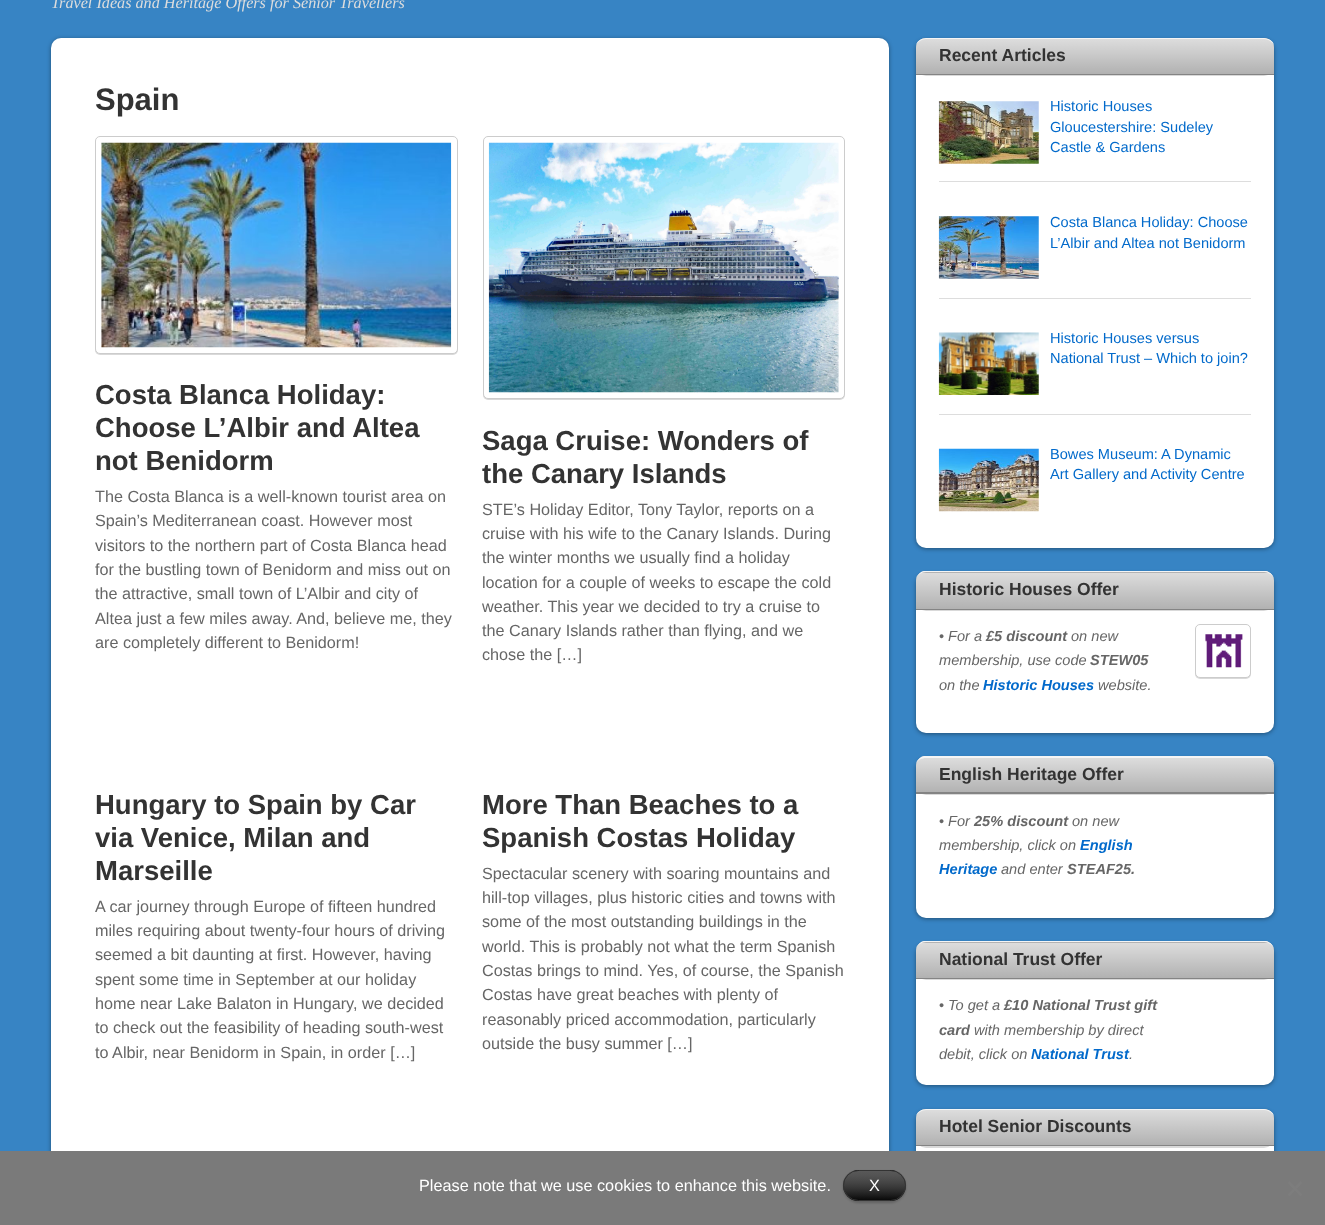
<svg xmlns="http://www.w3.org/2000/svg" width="1325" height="1225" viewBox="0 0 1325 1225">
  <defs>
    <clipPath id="clip1"><path d="M926 38H1264C1269.5 38 1274 42.5 1274 48V75H916V48C916 42.5 920.5 38 926 38Z"/></clipPath>
    <linearGradient id="g1" gradientUnits="userSpaceOnUse" x1="1095" y1="39" x2="1095" y2="74"><stop offset="0" stop-color="#fff" stop-opacity="0.6"/><stop offset="1" stop-color="#fff" stop-opacity="0.1"/></linearGradient>
    <clipPath id="clip2"><path d="M926 571H1264C1269.5 571 1274 575.5 1274 581V610H916V581C916 575.5 920.5 571 926 571Z"/></clipPath>
    <linearGradient id="g2" gradientUnits="userSpaceOnUse" x1="1095" y1="536" x2="1095" y2="573"><stop offset="0" stop-color="#fff" stop-opacity="0.6"/><stop offset="1" stop-color="#fff" stop-opacity="0.1"/></linearGradient>
    <linearGradient id="g3" gradientUnits="userSpaceOnUse" x1="1095" y1="573" x2="1095" y2="609"><stop offset="0" stop-color="#fff" stop-opacity="0.6"/><stop offset="1" stop-color="#fff" stop-opacity="0.1"/></linearGradient>
    <clipPath id="clip3"><path d="M926 756H1264C1269.5 756 1274 760.5 1274 766V794H916V766C916 760.5 920.5 756 926 756Z"/></clipPath>
    <linearGradient id="g4" gradientUnits="userSpaceOnUse" x1="1095" y1="758" x2="1095" y2="793"><stop offset="0" stop-color="#fff" stop-opacity="0.6"/><stop offset="1" stop-color="#fff" stop-opacity="0.1"/></linearGradient>
    <clipPath id="clip4"><path d="M926 941H1264C1269.5 941 1274 945.5 1274 951V979H916V951C916 945.5 920.5 941 926 941Z"/></clipPath>
    <linearGradient id="g5" gradientUnits="userSpaceOnUse" x1="1095" y1="908" x2="1095" y2="943"><stop offset="0" stop-color="#fff" stop-opacity="0.6"/><stop offset="1" stop-color="#fff" stop-opacity="0.1"/></linearGradient>
    <linearGradient id="g6" gradientUnits="userSpaceOnUse" x1="1095" y1="943" x2="1095" y2="978"><stop offset="0" stop-color="#fff" stop-opacity="0.6"/><stop offset="1" stop-color="#fff" stop-opacity="0.1"/></linearGradient>
    <clipPath id="clip5"><path d="M926 1109H1264C1269.5 1109 1274 1113.5 1274 1119V1146H916V1119C916 1113.5 920.5 1109 926 1109Z"/></clipPath>
    <linearGradient id="g7" gradientUnits="userSpaceOnUse" x1="1095" y1="1110" x2="1095" y2="1145"><stop offset="0" stop-color="#fff" stop-opacity="0.6"/><stop offset="1" stop-color="#fff" stop-opacity="0.1"/></linearGradient>
    <clipPath id="clip6"><rect x="843" y="1170" width="63" height="31" rx="15.5"/></clipPath>
    <linearGradient id="g8" gradientUnits="userSpaceOnUse" x1="874" y1="1171" x2="874" y2="1200"><stop offset="0" stop-color="#fff" stop-opacity="0.3"/><stop offset="1" stop-color="#000" stop-opacity="0.5"/></linearGradient>
  </defs>
  <rect width="100%" height="100%" fill="#3784c4"/>
  <rect x="51" y="39" width="838" height="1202" rx="10" fill="#00000066" filter="blur(2px)"/>
  <rect x="51" y="38" width="838" height="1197" rx="10" fill="#fff"/>
  <rect x="95" y="138" width="363" height="217" rx="5" fill="#00000026" filter="blur(0.5px)"/>
  <rect x="95.5" y="136.5" width="362" height="217" rx="4.5" fill="#fff" stroke="#ccc"/>
  <image x="101" y="142" width="351" height="206" href="img/1.png"/>
  <rect x="483" y="138" width="362" height="262" rx="5" fill="#00000026" filter="blur(0.5px)"/>
  <rect x="483.5" y="136.5" width="361" height="262" rx="4.5" fill="#fff" stroke="#ccc"/>
  <image x="488" y="142" width="351" height="251" href="img/2.png"/>
  <rect x="916" y="40" width="358" height="509" rx="10" fill="#00000066" filter="blur(2px)"/>
  <rect x="916" y="39" width="358" height="509" rx="10" fill="#fff"/>
  <rect x="916" y="39" width="358" height="37" rx="10" fill="#00000026" filter="blur(0.5px)"/>
  <path d="M926 38H1264C1269.5 38 1274 42.5 1274 48V75H916V48C916 42.5 920.5 38 926 38Z" fill="#a9a9a9"/>
  <g clip-path="url(#clip1)">
    <path d="M916 39h358v35H916z" fill="url(#g1)"/>
  </g>
  <path d="M926 38H1264C1268 38 1274 41 1274 46C1273 42 1268 39 1264 39H926C922 39 917 42 916 46C916 41 922 38 926 38Z" fill="#f5f5f5"/>
  <path d="M916 74h358v1H916z" fill="#848484"/>
  <path d="M939 181h312v1H939z" fill="#ddd"/>
  <image x="938" y="101" width="101" height="63" href="img/3.png"/>
  <path d="M939 298h312v1H939z" fill="#ddd"/>
  <image x="938" y="216" width="101" height="63" href="img/4.png"/>
  <path d="M939 414h312v1H939z" fill="#ddd"/>
  <image x="938" y="332" width="101" height="63" href="img/5.png"/>
  <image x="938" y="448" width="101" height="64" href="img/6.png"/>
  <rect x="916" y="574" width="358" height="160" rx="10" fill="#00000066" filter="blur(2px)"/>
  <rect x="916" y="573" width="358" height="160" rx="10" fill="#fff"/>
  <rect x="916" y="573" width="358" height="38" rx="10" fill="#00000026" filter="blur(0.5px)"/>
  <path d="M926 571H1264C1269.5 571 1274 575.5 1274 581V610H916V581C916 575.5 920.5 571 926 571Z" fill="#a9a9a9"/>
  <g clip-path="url(#clip2)">
    <path d="M916 571h358v2H916z" fill="url(#g2)"/>
    <path d="M916 573h358v36H916z" fill="url(#g3)"/>
  </g>
  <path d="M926 572C922 572 917 575 916 579C916 576 921 571 924 571H1266C1269 571 1274 576 1274 579C1273 575 1268 572 1264 572Z" fill="#f5f5f5"/>
  <path d="M916 609h358v1H916z" fill="#848484"/>
  <rect x="1195" y="625" width="56" height="54" rx="5" fill="#00000026" filter="blur(0.5px)"/>
  <rect x="1195.5" y="624.5" width="55" height="53" rx="4.5" fill="#fff" stroke="#ccc"/>
  <image x="1205" y="634" width="38" height="34" href="img/7.png"/>
  <rect x="916" y="759" width="358" height="160" rx="10" fill="#00000066" filter="blur(2px)"/>
  <rect x="916" y="758" width="358" height="160" rx="10" fill="#fff"/>
  <rect x="916" y="758" width="358" height="37" rx="10" fill="#00000026" filter="blur(0.5px)"/>
  <path d="M926 756H1264C1269.5 756 1274 760.5 1274 766V794H916V766C916 760.5 920.5 756 926 756Z" fill="#a9a9a9"/>
  <g clip-path="url(#clip3)">
    <path d="M916 758h358v34H916z" fill="url(#g4)"/>
  </g>
  <path d="M926 758C922 758 917 760 916 764C916 761 921 756 924 756H1266C1269 756 1274 761 1274 764C1273 760 1268 758 1264 758Z" fill="#f5f5f5"/>
  <path d="M916 792h358v2H916z" fill="#848484"/>
  <rect x="916" y="944" width="358" height="142" rx="10" fill="#00000066" filter="blur(2px)"/>
  <rect x="916" y="943" width="358" height="142" rx="10" fill="#fff"/>
  <rect x="916" y="943" width="358" height="37" rx="10" fill="#00000026" filter="blur(0.5px)"/>
  <path d="M926 941H1264C1269.5 941 1274 945.5 1274 951V979H916V951C916 945.5 920.5 941 926 941Z" fill="#a9a9a9"/>
  <g clip-path="url(#clip4)">
    <path d="M916 941h358v2H916z" fill="url(#g5)"/>
    <path d="M916 943h358v35H916z" fill="url(#g6)"/>
  </g>
  <path d="M926 942C922 942 917 945 916 949C916 946 921 941 924 941H1266C1269 941 1274 946 1274 949C1273 945 1268 942 1264 942Z" fill="#f5f5f5"/>
  <path d="M916 978h358v1H916z" fill="#848484"/>
  <rect x="916" y="1111" width="358" height="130" rx="10" fill="#00000066" filter="blur(2px)"/>
  <rect x="916" y="1110" width="358" height="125" rx="10" fill="#fff"/>
  <rect x="916" y="1110" width="358" height="38" rx="10" fill="#00000026" filter="blur(0.5px)"/>
  <path d="M926 1109H1264C1269.5 1109 1274 1113.5 1274 1119V1146H916V1119C916 1113.5 920.5 1109 926 1109Z" fill="#a9a9a9"/>
  <g clip-path="url(#clip5)">
    <path d="M916 1110h358v35H916z" fill="url(#g7)"/>
  </g>
  <path d="M926 1109H1264C1268 1109 1274 1112 1274 1117C1273 1113 1268 1110 1264 1110H926C922 1110 917 1113 916 1117C916 1112 922 1109 926 1109Z" fill="#f5f5f5"/>
  <path d="M916 1145h358v1H916z" fill="#848484"/>
  <path d="M0 1151h1325v74H0z" fill="#7a7a7a"/>
  <rect x="843" y="1171" width="63" height="32" rx="16" fill="#00000033" filter="blur(1px)"/>
  <rect x="843" y="1170" width="63" height="31" rx="15.5" fill="#111"/>
  <g clip-path="url(#clip6)">
    <path d="M843 1171h63v29H843z" fill="url(#g8)"/>
  </g>
  <rect x="843.5" y="1170.5" width="62" height="30" rx="15" fill="none" stroke="#333"/>
  <path d="M1300.5 1181L1302.5 1183L1289.5 1196.5L1287.5 1194.5Z" fill="#7d7d7d"/>
  <path d="M1287.5 1183L1289.5 1181L1302.5 1194.5L1300.5 1196.5Z" fill="#7d7d7d"/>
  <text x="51" y="8" font-family="Liberation Serif" font-size="16.2" font-style="italic" fill="#ddd">Travel Ideas and Heritage Offers for Senior Travellers</text>
  <text x="95" y="110" font-family="Liberation Sans" font-size="31" font-weight="bold" fill="#333">Spain</text>
  <g font-family="Liberation Sans" font-size="27.5" font-weight="bold" fill="#333">
    <text x="95" y="404">Costa Blanca Holiday:</text>
    <text x="95" y="437">Choose L’Albir and Altea</text>
    <text x="95" y="470">not Benidorm</text>
  </g>
  <g font-family="Liberation Sans" font-size="16.2" fill="#666">
    <text x="95" y="502">The Costa Blanca is a well-known tourist area on</text>
    <text x="95" y="526">Spain’s Mediterranean coast. However most</text>
    <text x="95" y="551">visitors to the northern part of Costa Blanca head</text>
    <text x="95" y="575">for the bustling town of Benidorm and miss out on</text>
    <text x="95" y="599">the attractive, small town of L’Albir and city of</text>
    <text x="95" y="624">Altea just a few miles away. And, believe me, they</text>
    <text x="95" y="648">are completely different to Benidorm!</text>
  </g>
  <g font-family="Liberation Sans" font-size="27.5" font-weight="bold" fill="#333">
    <text x="482" y="450">Saga Cruise: Wonders of</text>
    <text x="482" y="483">the Canary Islands</text>
  </g>
  <g font-family="Liberation Sans" font-size="16.2" fill="#666">
    <text x="482" y="515">STE’s Holiday Editor, Tony Taylor, reports on a</text>
    <text x="482" y="539">cruise with his wife to the Canary Islands. During</text>
    <text x="482" y="563">the winter months we usually find a holiday</text>
    <text x="482" y="588">location for a couple of weeks to escape the cold</text>
    <text x="482" y="612">weather. This year we decided to try a cruise to</text>
    <text x="482" y="636">the Canary Islands rather than flying, and we</text>
    <text x="482" y="660">chose the […]</text>
  </g>
  <g font-family="Liberation Sans" font-size="27.5" font-weight="bold" fill="#333">
    <text x="95" y="814">Hungary to Spain by Car</text>
    <text x="95" y="847">via Venice, Milan and</text>
    <text x="95" y="880">Marseille</text>
  </g>
  <g font-family="Liberation Sans" font-size="16.2" fill="#666">
    <text x="95" y="912">A car journey through Europe of fifteen hundred</text>
    <text x="95" y="936">miles requiring about twenty-four hours of driving</text>
    <text x="95" y="960">seemed a bit daunting at first. However, having</text>
    <text x="95" y="985">spent some time in September at our holiday</text>
    <text x="95" y="1009">home near Lake Balaton in Hungary, we decided</text>
    <text x="95" y="1033">to check out the feasibility of heading south-west</text>
    <text x="95" y="1058">to Albir, near Benidorm in Spain, in order […]</text>
  </g>
  <g font-family="Liberation Sans" font-size="27.5" font-weight="bold" fill="#333">
    <text x="482" y="814">More Than Beaches to a</text>
    <text x="482" y="847">Spanish Costas Holiday</text>
  </g>
  <g font-family="Liberation Sans" font-size="16.2" fill="#666">
    <text x="482" y="879">Spectacular scenery with soaring mountains and</text>
    <text x="482" y="903">hill-top villages, plus historic cities and towns with</text>
    <text x="482" y="927">some of the most outstanding buildings in the</text>
    <text x="482" y="952">world. This is probably not what the term Spanish</text>
    <text x="482" y="976">Costas brings to mind. Yes, of course, the Spanish</text>
    <text x="482" y="1000">Costas have great beaches with plenty of</text>
    <text x="482" y="1025">reasonably priced accommodation, particularly</text>
    <text x="482" y="1049">outside the busy summer […]</text>
  </g>
  <text x="939" y="61" font-family="Liberation Sans" font-size="17.5" font-weight="bold" fill="#333">Recent Articles</text>
  <g font-family="Liberation Sans" font-size="14.6" fill="#026acb">
    <text x="1050" y="111">Historic Houses</text>
    <text x="1050" y="132">Gloucestershire: Sudeley</text>
    <text x="1050" y="152">Castle &amp; Gardens</text>
    <text x="1050" y="227">Costa Blanca Holiday: Choose</text>
    <text x="1050" y="248">L’Albir and Altea not Benidorm</text>
    <text x="1050" y="343">Historic Houses versus</text>
    <text x="1050" y="363">National Trust – Which to join?</text>
    <text x="1050" y="459">Bowes Museum: A Dynamic</text>
    <text x="1050" y="479">Art Gallery and Activity Centre</text>
  </g>
  <text x="939" y="595" font-family="Liberation Sans" font-size="17.5" font-weight="bold" fill="#333">Historic Houses Offer</text>
  <text x="939" y="641" font-family="Liberation Sans" font-size="14.6" fill="#666">•</text>
  <text x="948" y="641" font-family="Liberation Sans" font-size="14.6" font-style="italic" fill="#666">For a</text>
  <text x="986" y="641" font-family="Liberation Sans" font-size="14.6" font-weight="bold" font-style="italic" fill="#666">£5 discount</text>
  <g font-family="Liberation Sans" font-size="14.6" font-style="italic" fill="#666">
    <text x="1071" y="641">on new</text>
    <text x="939" y="665">membership, use code</text>
  </g>
  <text x="1090" y="665" font-family="Liberation Sans" font-size="14.6" font-weight="bold" font-style="italic" fill="#666">STEW05</text>
  <text x="939" y="690" font-family="Liberation Sans" font-size="14.6" font-style="italic" fill="#666">on the</text>
  <text x="983" y="690" font-family="Liberation Sans" font-size="14.6" font-weight="bold" font-style="italic" fill="#026acb">Historic Houses</text>
  <text x="1098" y="690" font-family="Liberation Sans" font-size="14.6" font-style="italic" fill="#666">website.</text>
  <text x="939" y="780" font-family="Liberation Sans" font-size="17.5" font-weight="bold" fill="#333">English Heritage Offer</text>
  <text x="939" y="826" font-family="Liberation Sans" font-size="14.6" fill="#666">•</text>
  <text x="948" y="826" font-family="Liberation Sans" font-size="14.6" font-style="italic" fill="#666">For</text>
  <text x="974" y="826" font-family="Liberation Sans" font-size="14.6" font-weight="bold" font-style="italic" fill="#666">25% discount</text>
  <g font-family="Liberation Sans" font-size="14.6" font-style="italic" fill="#666">
    <text x="1072" y="826">on new</text>
    <text x="939" y="850">membership, click on</text>
  </g>
  <g font-family="Liberation Sans" font-size="14.6" font-weight="bold" font-style="italic" fill="#026acb">
    <text x="1080" y="850">English</text>
    <text x="939" y="874">Heritage</text>
  </g>
  <text x="1001" y="874" font-family="Liberation Sans" font-size="14.6" font-style="italic" fill="#666">and enter</text>
  <text x="1067" y="874" font-family="Liberation Sans" font-size="14.6" font-weight="bold" font-style="italic" fill="#666">STEAF25.</text>
  <text x="939" y="965" font-family="Liberation Sans" font-size="17.5" font-weight="bold" fill="#333">National Trust Offer</text>
  <text x="939" y="1010" font-family="Liberation Sans" font-size="14.6" fill="#666">•</text>
  <text x="948" y="1010" font-family="Liberation Sans" font-size="14.6" font-style="italic" fill="#666">To get a</text>
  <g font-family="Liberation Sans" font-size="14.6" font-weight="bold" font-style="italic" fill="#666">
    <text x="1004" y="1010">£10 National Trust gift</text>
    <text x="939" y="1035">card</text>
  </g>
  <g font-family="Liberation Sans" font-size="14.6" font-style="italic" fill="#666">
    <text x="974" y="1035">with membership by direct</text>
    <text x="939" y="1059">debit, click on</text>
  </g>
  <text x="1031" y="1059" font-family="Liberation Sans" font-size="14.6" font-weight="bold" font-style="italic" fill="#026acb">National Trust</text>
  <text x="1129" y="1059" font-family="Liberation Sans" font-size="14.6" font-style="italic" fill="#666">.</text>
  <text x="939" y="1132" font-family="Liberation Sans" font-size="17.5" font-weight="bold" fill="#333">Hotel Senior Discounts</text>
  <g font-family="Liberation Sans" font-size="16.25" fill="#fff">
    <text x="419" y="1191">Please note that we use cookies to enhance this website.</text>
    <text x="869" y="1191">X</text>
  </g>
</svg>
